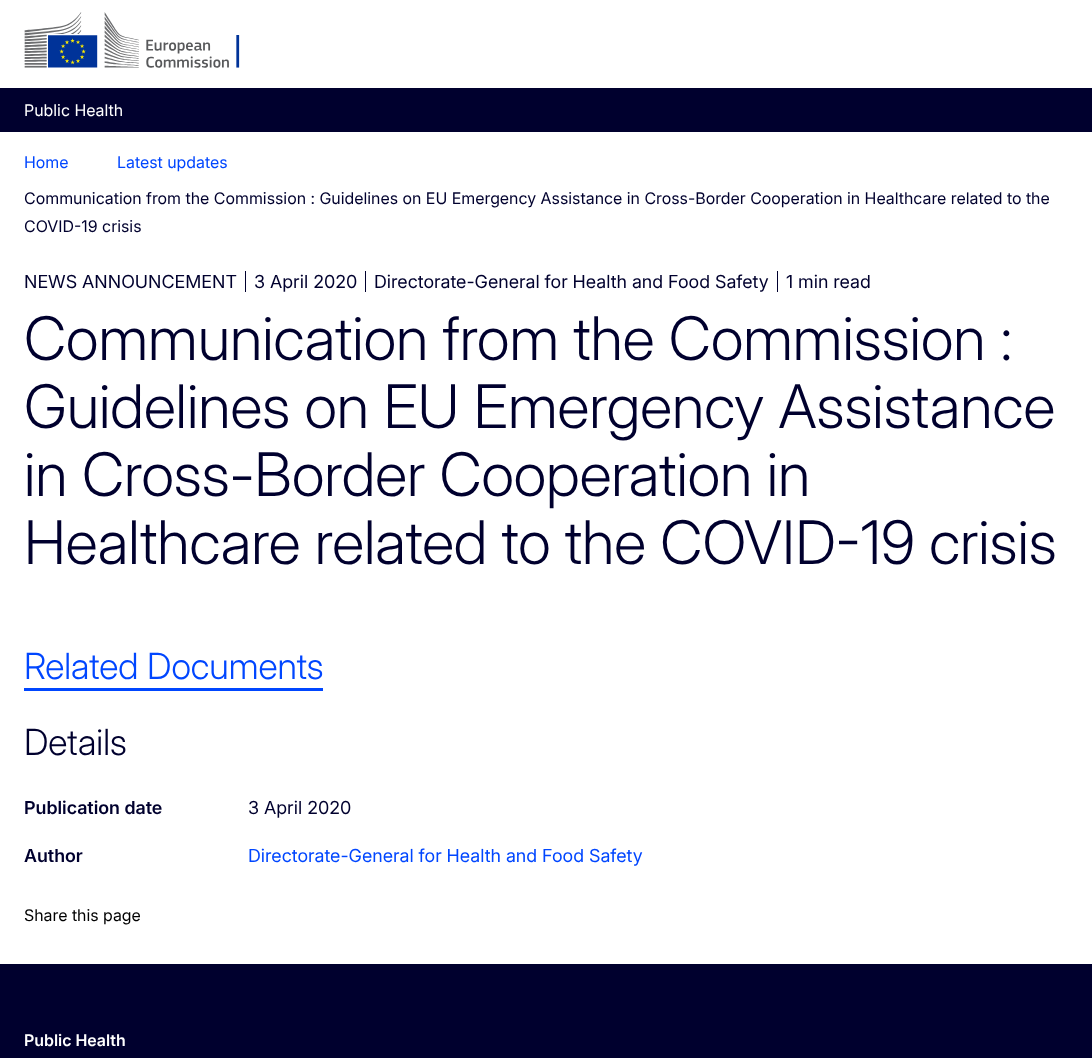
<svg xmlns="http://www.w3.org/2000/svg" width="1092" height="1058" viewBox="0 0 1092 1058">
  <rect width="100%" height="100%" fill="#fff"/>
  <image x="24" y="12" width="216" height="56" href="img/1.png"/>
  <path d="M0 88h1092v44H0z" fill="#00002e"/>
  <path d="M245 271h1v21H245z" fill="#00002e"/>
  <path d="M365 271h1v21H365z" fill="#00002e"/>
  <path d="M777 271h1v21H777z" fill="#00002e"/>
  <path d="M24 688h299v3H24z" fill="#0046ff"/>
  <path d="M0 964h1092v94H0z" fill="#00002e"/>
  <text x="24" y="116" font-family="Inter" font-size="16" fill="#fff">Public Health</text>
  <g font-family="Inter" font-size="16" fill="#0046ff">
    <text x="24" y="168">Home</text>
    <text x="117" y="168">Latest updates</text>
  </g>
  <g font-family="Inter" font-size="16" fill="#00002e">
    <text x="24" y="204">Communication from the Commission : Guidelines on EU Emergency Assistance in Cross-Border Cooperation in Healthcare related to the</text>
    <text x="24" y="232">COVID-19 crisis</text>
  </g>
  <g font-family="'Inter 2'" font-size="18" fill="#00002e">
    <text x="24" y="288">NEWS ANNOUNCEMENT</text>
    <text x="254" y="288">3 April 2020</text>
    <text x="374" y="288">Directorate-General for Health and Food Safety</text>
    <text x="786" y="288">1 min read</text>
  </g>
  <g font-family="Inter" font-size="60" font-weight="300" fill="#00002e">
    <text x="24" y="360">Communication from the Commission :</text>
    <text x="24" y="428">Guidelines on EU Emergency Assistance</text>
    <text x="24" y="496">in Cross-Border Cooperation in</text>
    <text x="24" y="564">Healthcare related to the COVID-19 crisis</text>
  </g>
  <text x="24" y="679" font-family="Inter" font-size="36" font-weight="300" fill="#0046ff">Related Documents</text>
  <text x="24" y="755" font-family="Inter" font-size="36" font-weight="300" fill="#00002e">Details</text>
  <text x="24" y="814" font-family="Inter" font-size="18" font-weight="600" fill="#00002e">Publication date</text>
  <text x="248" y="814" font-family="'Inter 2'" font-size="18" fill="#00002e">3 April 2020</text>
  <text x="24" y="862" font-family="Inter" font-size="18" font-weight="600" fill="#00002e">Author</text>
  <text x="248" y="862" font-family="'Inter 2'" font-size="18" fill="#0046ff">Directorate-General for Health and Food Safety</text>
  <text x="24" y="921" font-family="Inter" font-size="16" fill="#000">Share this page</text>
  <text x="24" y="1046" font-family="'Inter 2'" font-size="16" font-weight="600" fill="#fff">Public Health</text>
</svg>
